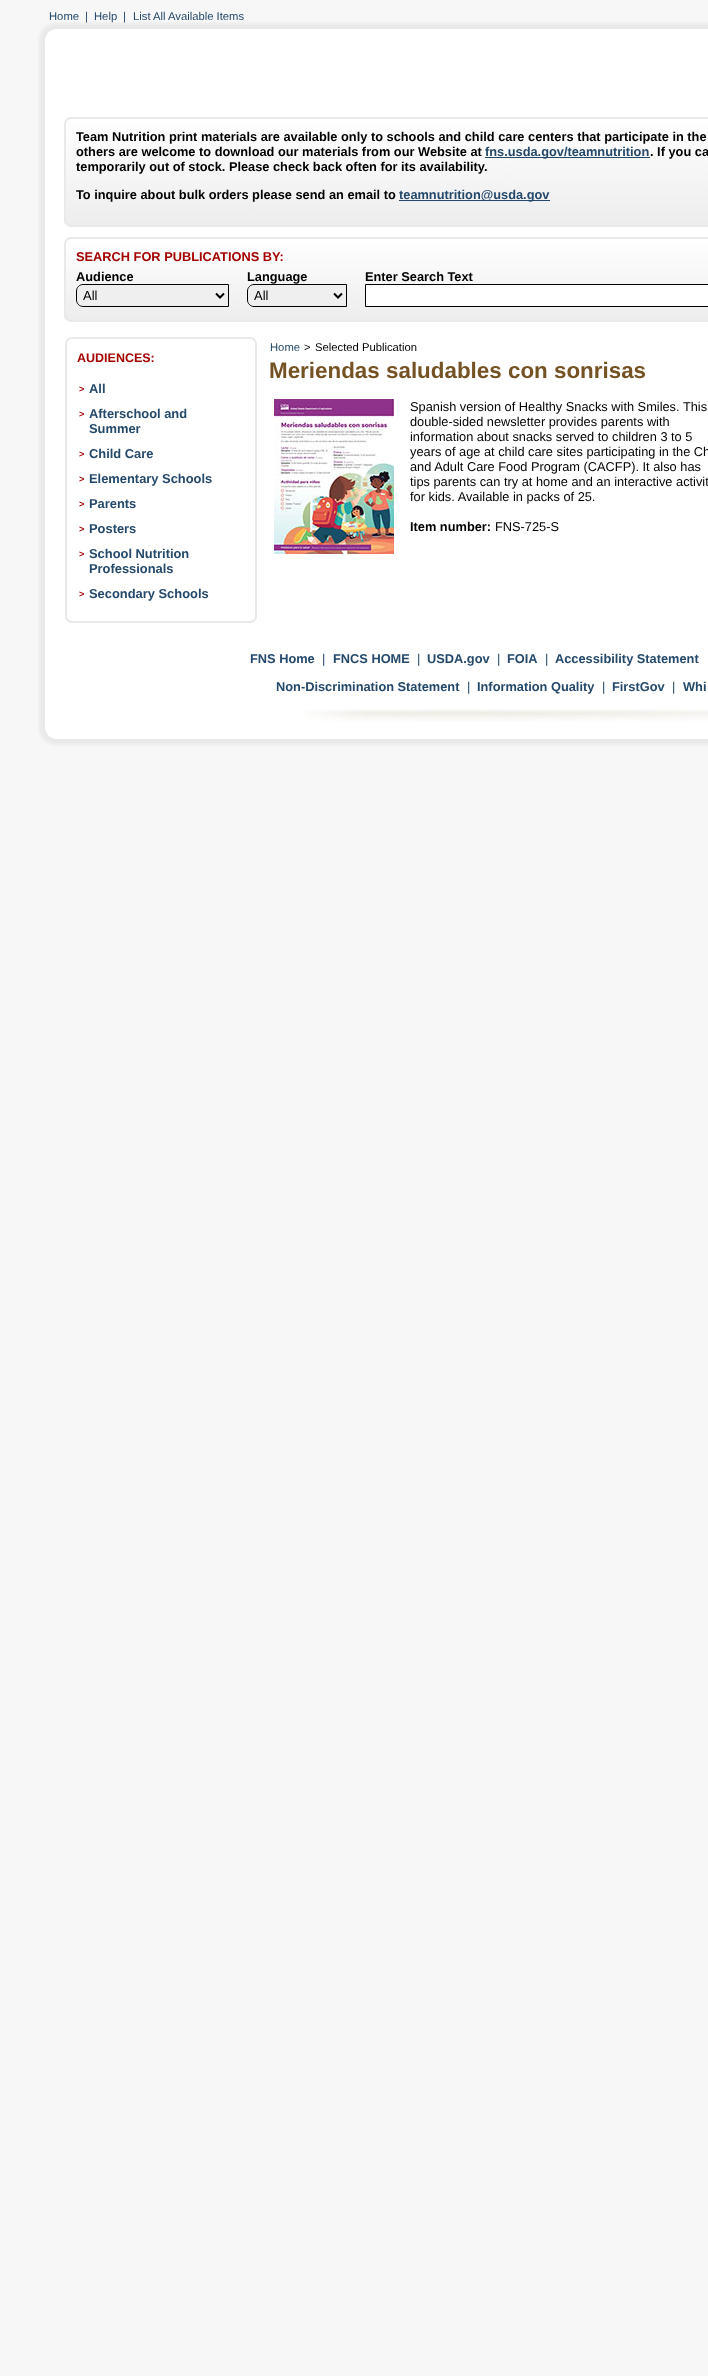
<svg xmlns="http://www.w3.org/2000/svg" width="708" height="2376" viewBox="0 0 708 2376">
  <defs>
    <clipPath id="clip1"><rect x="64" y="117" width="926" height="110" rx="7"/></clipPath>
    <linearGradient id="g1" gradientUnits="userSpaceOnUse" x1="66" y1="119" x2="66" y2="225"><stop offset="0" stop-color="#fff"/><stop offset="1" stop-color="#ededed"/></linearGradient>
    <clipPath id="clip2"><rect x="64" y="237" width="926" height="85" rx="7"/></clipPath>
    <linearGradient id="g2" gradientUnits="userSpaceOnUse" x1="66" y1="239" x2="66" y2="320"><stop offset="0" stop-color="#fff"/><stop offset="1" stop-color="#ededed"/></linearGradient>
  </defs>
  <rect width="100%" height="100%" fill="#f7f7f7"/>
  <rect x="39" y="23" width="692" height="722" rx="18" fill="#e9e9e9" filter="blur(1.5px)"/>
  <rect x="43.5" y="27.5" width="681" height="713" rx="13.5" fill="#fff" stroke="#e9e9e9" stroke-width="3"/>
  <g clip-path="url(#clip1)">
    <path d="M64 119h644v106H64z" fill="url(#g1)"/>
  </g>
  <rect x="65" y="118" width="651" height="108" rx="6" fill="none" stroke="#e9e9e9" stroke-width="2"/>
  <path d="M485 157h165v1H485z" fill="#24496b"/>
  <path d="M399 200h151v1H399z" fill="#24496b"/>
  <g clip-path="url(#clip2)">
    <path d="M64 239h644v81H64z" fill="url(#g2)"/>
  </g>
  <rect x="65" y="238" width="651" height="83" rx="6" fill="none" stroke="#e9e9e9" stroke-width="2"/>
  <path d="M83 284.5H228.5V306.5H83C79.5 306.5 76.5 303.5 76.5 300V291C76.5 287.5 79.5 284.5 83 284.5Z" fill="#efefef" stroke="#000"/>
  <path d="M216 293.5L220 297.5L224 293.5" fill="none" stroke="#000" stroke-width="2"/>
  <path d="M254 284.5H346.5V306.5H254C250.5 306.5 247.5 303.5 247.5 300V291C247.5 287.5 250.5 284.5 254 284.5Z" fill="#efefef" stroke="#000"/>
  <path d="M334 293.5L338 297.5L342 293.5" fill="none" stroke="#000" stroke-width="2"/>
  <path d="M365.5 284.5h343v22H365.5z" fill="#fff" stroke="#000"/>
  <rect x="66" y="338" width="190" height="284" rx="6" fill="none" stroke="#e9e9e9" stroke-width="2"/>
  <image x="274" y="399" width="120" height="155" href="img/1.png"/>
  <image x="305" y="709" width="403" height="13" href="img/2.png"/>
  <g font-family="Liberation Sans" font-size="11.25" fill="#24496b">
    <text x="49" y="20">Home</text>
    <text x="85" y="20">|</text>
    <text x="94" y="20">Help</text>
    <text x="123" y="20">|</text>
    <text x="133" y="20">List All Available Items</text>
  </g>
  <g font-family="Liberation Sans" font-size="12.8" font-weight="bold" fill="#000">
    <text x="76" y="141">Team Nutrition print materials are available only to schools and child care centers that participate in the</text>
    <text x="76" y="156">others are welcome to download our materials from our Website at</text>
  </g>
  <text x="485" y="156" font-family="Liberation Sans" font-size="12.8" font-weight="bold" fill="#24496b">fns.usda.gov/teamnutrition</text>
  <g font-family="Liberation Sans" font-size="12.8" font-weight="bold" fill="#000">
    <text x="650" y="156">. If you ca</text>
    <text x="76" y="171">temporarily out of stock. Please check back often for its availability.</text>
    <text x="76" y="199">To inquire about bulk orders please send an email to</text>
  </g>
  <text x="399" y="199" font-family="Liberation Sans" font-size="12.8" font-weight="bold" fill="#24496b">teamnutrition@usda.gov</text>
  <text x="76" y="261" font-family="Liberation Sans" font-size="12.8" font-weight="bold" fill="#a50000">SEARCH FOR PUBLICATIONS BY:</text>
  <text x="76" y="281" font-family="Liberation Sans" font-size="12.8" font-weight="bold" fill="#000">Audience</text>
  <text x="83" y="300" font-family="Liberation Sans" font-size="13" fill="#000">All</text>
  <text x="247" y="281" font-family="Liberation Sans" font-size="12.8" font-weight="bold" fill="#000">Language</text>
  <text x="254" y="300" font-family="Liberation Sans" font-size="13" fill="#000">All</text>
  <text x="365" y="281" font-family="Liberation Sans" font-size="12.8" font-weight="bold" fill="#000">Enter Search Text</text>
  <text x="270" y="351" font-family="Liberation Sans" font-size="11.25" fill="#24496b">Home</text>
  <g font-family="Liberation Sans" font-size="11.25" fill="#000">
    <text x="304" y="351">&gt;</text>
    <text x="315" y="351">Selected Publication</text>
  </g>
  <text x="77" y="362" font-family="Liberation Sans" font-size="12.5" font-weight="bold" fill="#a50000">AUDIENCES:</text>
  <text x="79" y="392" font-family="Liberation Sans" font-size="9" font-weight="bold" fill="#a50000">&gt;</text>
  <text x="89" y="393" font-family="Liberation Sans" font-size="12.9" font-weight="bold" fill="#24496b">All</text>
  <text x="79" y="417" font-family="Liberation Sans" font-size="9" font-weight="bold" fill="#a50000">&gt;</text>
  <g font-family="Liberation Sans" font-size="12.9" font-weight="bold" fill="#24496b">
    <text x="89" y="418">Afterschool and</text>
    <text x="89" y="433">Summer</text>
  </g>
  <text x="79" y="457" font-family="Liberation Sans" font-size="9" font-weight="bold" fill="#a50000">&gt;</text>
  <text x="89" y="458" font-family="Liberation Sans" font-size="12.9" font-weight="bold" fill="#24496b">Child Care</text>
  <text x="79" y="482" font-family="Liberation Sans" font-size="9" font-weight="bold" fill="#a50000">&gt;</text>
  <text x="89" y="483" font-family="Liberation Sans" font-size="12.9" font-weight="bold" fill="#24496b">Elementary Schools</text>
  <text x="79" y="507" font-family="Liberation Sans" font-size="9" font-weight="bold" fill="#a50000">&gt;</text>
  <text x="89" y="508" font-family="Liberation Sans" font-size="12.9" font-weight="bold" fill="#24496b">Parents</text>
  <text x="79" y="532" font-family="Liberation Sans" font-size="9" font-weight="bold" fill="#a50000">&gt;</text>
  <text x="89" y="533" font-family="Liberation Sans" font-size="12.9" font-weight="bold" fill="#24496b">Posters</text>
  <text x="79" y="557" font-family="Liberation Sans" font-size="9" font-weight="bold" fill="#a50000">&gt;</text>
  <g font-family="Liberation Sans" font-size="12.9" font-weight="bold" fill="#24496b">
    <text x="89" y="558">School Nutrition</text>
    <text x="89" y="573">Professionals</text>
  </g>
  <text x="79" y="597" font-family="Liberation Sans" font-size="9" font-weight="bold" fill="#a50000">&gt;</text>
  <text x="89" y="598" font-family="Liberation Sans" font-size="12.9" font-weight="bold" fill="#24496b">Secondary Schools</text>
  <text x="269" y="378" font-family="Liberation Sans" font-size="22.4" font-weight="bold" fill="#755224">Meriendas saludables con sonrisas</text>
  <g font-family="Liberation Sans" font-size="12.8" fill="#000">
    <text x="410" y="411">Spanish version of Healthy Snacks with Smiles. This</text>
    <text x="410" y="426">double-sided newsletter provides parents with</text>
    <text x="410" y="441">information about snacks served to children 3 to 5</text>
    <text x="410" y="456">years of age at child care sites participating in the Ch</text>
    <text x="410" y="471">and Adult Care Food Program (CACFP). It also has</text>
    <text x="410" y="486">tips parents can try at home and an interactive activit</text>
    <text x="410" y="501">for kids. Available in packs of 25.</text>
  </g>
  <text x="410" y="531" font-family="Liberation Sans" font-size="12.8" font-weight="bold" fill="#000">Item number:</text>
  <text x="495" y="531" font-family="Liberation Sans" font-size="12.8" fill="#000">FNS-725-S</text>
  <text x="250" y="663" font-family="Liberation Sans" font-size="12.8" font-weight="bold" fill="#24496b">FNS Home</text>
  <text x="322" y="663" font-family="Liberation Sans" font-size="12.8" fill="#24496b">|</text>
  <text x="333" y="663" font-family="Liberation Sans" font-size="12.8" font-weight="bold" fill="#24496b">FNCS HOME</text>
  <text x="417" y="663" font-family="Liberation Sans" font-size="12.8" fill="#24496b">|</text>
  <text x="427" y="663" font-family="Liberation Sans" font-size="12.8" font-weight="bold" fill="#24496b">USDA.gov</text>
  <text x="497" y="663" font-family="Liberation Sans" font-size="12.8" fill="#24496b">|</text>
  <text x="507" y="663" font-family="Liberation Sans" font-size="12.8" font-weight="bold" fill="#24496b">FOIA</text>
  <text x="545" y="663" font-family="Liberation Sans" font-size="12.8" fill="#24496b">|</text>
  <g font-family="Liberation Sans" font-size="12.8" font-weight="bold" fill="#24496b">
    <text x="555" y="663">Accessibility Statement</text>
    <text x="276" y="691">Non-Discrimination Statement</text>
  </g>
  <text x="467" y="691" font-family="Liberation Sans" font-size="12.8" fill="#24496b">|</text>
  <text x="477" y="691" font-family="Liberation Sans" font-size="12.8" font-weight="bold" fill="#24496b">Information Quality</text>
  <text x="602" y="691" font-family="Liberation Sans" font-size="12.8" fill="#24496b">|</text>
  <text x="612" y="691" font-family="Liberation Sans" font-size="12.8" font-weight="bold" fill="#24496b">FirstGov</text>
  <text x="672" y="691" font-family="Liberation Sans" font-size="12.8" fill="#24496b">|</text>
  <text x="683" y="691" font-family="Liberation Sans" font-size="12.8" font-weight="bold" fill="#24496b">Whi</text>
</svg>
